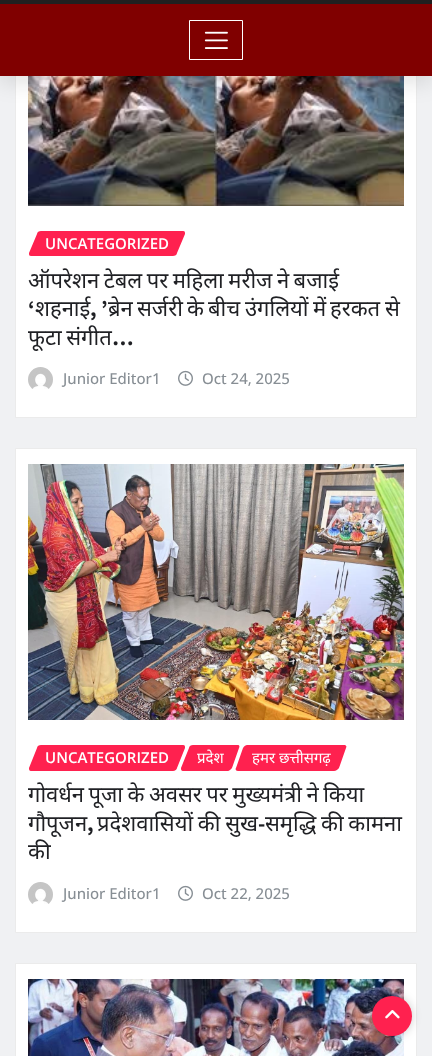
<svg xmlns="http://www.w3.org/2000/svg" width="432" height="1056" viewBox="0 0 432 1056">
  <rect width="100%" height="100%" fill="#f0f1f3"/>
  <path d="M16 76h400v341H16z" fill="#fff"/>
  <path d="M15.5 -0.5h401v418H15.5z" fill="none" stroke="#ebebeb"/>
  <image x="28" y="76" width="376" height="130" href="img/2.png"/>
  <path d="M0 8h432v76H0z" fill="#0000001a" filter="blur(10px)"/>
  <path d="M0 4h432v72H0z" fill="#800000"/>
  <path d="M0 0h432v4H0z" fill="#202020"/>
  <path d="M189.5 20.5h53v39H189.5z" fill="none" stroke="#fff"/>
  <image x="204" y="31" width="24" height="18" href="img/1.png"/>
  <path d="M41 231H183C185 231 185 232 185 234L177 253C177 255 175 256 173 256H31C29 256 29 255 29 253L37 234C37 232 39 231 41 231Z" fill="#ff214f"/>
  <image x="28" y="367" width="25" height="22" href="img/3.png"/>
  <image x="178" y="370" width="15" height="16" href="img/4.png"/>
  <path d="M15.5 448.5h401v484H15.5z" fill="#fff" stroke="#ebebeb"/>
  <image x="28" y="464" width="376" height="256" href="img/5.png"/>
  <path d="M41 745H183C185 745 185 746 185 748L177 768C177 769 175 771 173 771H31C29 771 29 769 29 768L37 748C37 746 39 745 41 745Z" fill="#ff214f"/>
  <path d="M193 745H238C239 745 240 746 239 748L232 768C231 769 229 771 228 771H183C181 771 181 769 181 768L189 748C189 746 191 745 193 745Z" fill="#ff214f"/>
  <path d="M247 745H344C346 745 347 746 346 748L339 768C338 769 336 771 334 771H238C236 771 235 769 236 768L243 748C244 746 246 745 247 745Z" fill="#ff214f"/>
  <image x="28" y="882" width="25" height="22" href="img/3.png"/>
  <image x="178" y="885" width="15" height="16" href="img/4.png"/>
  <path d="M15.5 963.5h401v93H15.5z" fill="#fff" stroke="#ebebeb"/>
  <image x="28" y="979" width="376" height="77" href="img/6.png"/>
  <rect x="372" y="996" width="40" height="40" rx="20" fill="#00000033" filter="blur(5px)"/>
  <circle cx="392" cy="1016" r="20" fill="#ff214f"/>
  <image x="385" y="1010" width="15" height="9" href="img/7.png"/>
  <text x="45" y="249" font-family="Open Sans" font-size="15" font-weight="600" fill="#fff">UNCATEGORIZED</text>
  <g font-family="Noto Sans" font-size="22" fill="#1f2024">
    <text x="28" y="288" word-spacing="-1.25">ऑपरेशन टेबल पर महिला मरीज ने बजाई</text>
    <text x="35" y="316">शहनाई</text>
    <text x="137" y="316">सर्जरी</text>
    <text x="187" y="316">के</text>
    <text x="208" y="316">बीच</text>
    <text x="245" y="316">उंगलियों</text>
    <text x="313" y="316">में</text>
  </g>
  <g font-family="Source Sans Pro" font-size="22" font-weight="bold" fill="#1f2024">
    <text x="28" y="316">‘</text>
    <text x="90" y="316">, ’</text>
  </g>
  <g font-family="Noto Sans" font-size="22" fill="#1f2024">
    <text x="108" y="316">ब्रेन</text>
    <text x="330" y="316">हरकत</text>
    <text x="385" y="316">से</text>
    <text x="28" y="345" word-spacing="-1.25">फूटा संगीत</text>
  </g>
  <text x="112" y="345" font-family="Source Sans Pro" font-size="22" font-weight="bold" fill="#1f2024">…</text>
  <g font-family="Open Sans" font-size="15" font-weight="500" fill="#878e94">
    <text x="63" y="384">Junior Editor1</text>
    <text x="202" y="384">Oct 24, 2025</text>
  </g>
  <text x="45" y="763" font-family="Open Sans" font-size="15" font-weight="600" fill="#fff">UNCATEGORIZED</text>
  <g font-family="Noto Sans" font-size="15" fill="#fff">
    <text x="197" y="763">प्रदेश</text>
    <text x="252" y="763">हमर छत्तीसगढ़</text>
  </g>
  <g font-family="Noto Sans" font-size="22" fill="#1f2024">
    <text x="28" y="802" word-spacing="-1.25">गोवर्धन पूजा के अवसर पर मुख्यमंत्री ने किया</text>
    <text x="28" y="831">गौपूजन</text>
    <text x="97" y="831" word-spacing="-1">प्रदेशवासियों की सुख</text>
  </g>
  <text x="258" y="831" font-family="Source Sans Pro" font-size="22" font-weight="bold" fill="#1f2024">-</text>
  <text x="265" y="831" word-spacing="-1" font-family="Noto Sans" font-size="22" fill="#1f2024">समृद्धि की कामना</text>
  <text x="87" y="831" font-family="Source Sans Pro" font-size="22" font-weight="bold" fill="#1f2024">,</text>
  <text x="28" y="859" font-family="Noto Sans" font-size="22" fill="#1f2024">की</text>
  <g font-family="Open Sans" font-size="15" font-weight="500" fill="#878e94">
    <text x="63" y="899">Junior Editor1</text>
    <text x="202" y="899">Oct 22, 2025</text>
  </g>
</svg>
